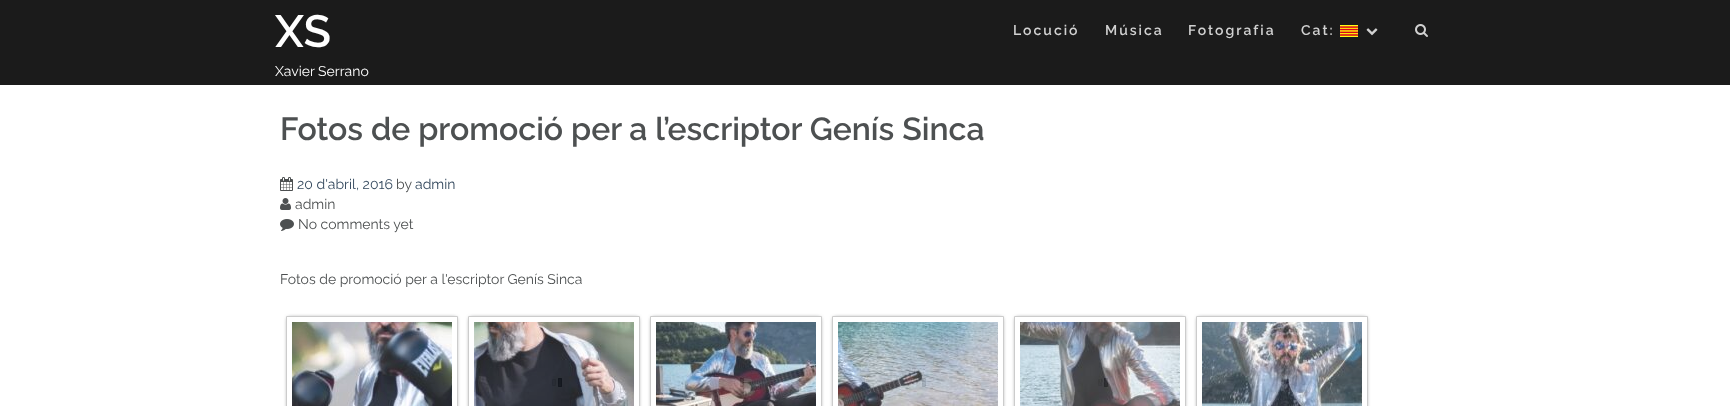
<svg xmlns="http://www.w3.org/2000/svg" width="1730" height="406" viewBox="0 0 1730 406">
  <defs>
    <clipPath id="clip1"><path d="M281 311H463V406H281ZM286 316H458V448H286Z" clip-rule="evenodd"/></clipPath>
    <clipPath id="clip2"><path d="M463 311H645V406H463ZM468 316H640V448H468Z" clip-rule="evenodd"/></clipPath>
    <clipPath id="clip3"><path d="M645 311H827V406H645ZM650 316H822V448H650Z" clip-rule="evenodd"/></clipPath>
    <clipPath id="clip4"><path d="M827 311H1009V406H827ZM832 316H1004V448H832Z" clip-rule="evenodd"/></clipPath>
    <clipPath id="clip5"><path d="M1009 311H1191V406H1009ZM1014 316H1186V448H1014Z" clip-rule="evenodd"/></clipPath>
    <clipPath id="clip6"><path d="M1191 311H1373V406H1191ZM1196 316H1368V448H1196Z" clip-rule="evenodd"/></clipPath>
  </defs>
  <rect width="100%" height="100%" fill="#fff"/>
  <path d="M0 0h1730v85H0z" fill="#1b1b1b"/>
  <image x="1340" y="25" width="18" height="12" href="img/1.png"/>
  <image x="1366" y="28" width="12" height="8" href="img/2.png"/>
  <image x="1415" y="24" width="13" height="13" href="img/3.png"/>
  <image x="280" y="177" width="13" height="14" href="img/4.png"/>
  <image x="280" y="198" width="11" height="12" href="img/5.png"/>
  <image x="280" y="219" width="14" height="12" href="img/6.png"/>
  <g clip-path="url(#clip1)">
    <path d="M288 318h168v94H288z" fill="#4d5051" filter="blur(2px)"/>
  </g>
  <path d="M286.5 316.5h171v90H286.5z" fill="none" stroke="#ccc"/>
  <image x="292" y="322" width="160" height="84" href="img/7.png"/>
  <g clip-path="url(#clip2)">
    <path d="M470 318h168v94H470z" fill="#4d5051" filter="blur(2px)"/>
  </g>
  <image x="552" y="378" width="10" height="9" href="img/8.png"/>
  <path d="M468.5 316.5h171v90H468.5z" fill="none" stroke="#ccc"/>
  <image x="474" y="322" width="160" height="84" href="img/9.png"/>
  <g clip-path="url(#clip3)">
    <path d="M652 318h168v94H652z" fill="#4d5051" filter="blur(2px)"/>
  </g>
  <image x="734" y="378" width="10" height="9" href="img/8.png"/>
  <path d="M650.5 316.5h171v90H650.5z" fill="none" stroke="#ccc"/>
  <image x="656" y="322" width="160" height="84" href="img/10.png"/>
  <g clip-path="url(#clip4)">
    <path d="M834 318h168v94H834z" fill="#4d5051" filter="blur(2px)"/>
  </g>
  <image x="916" y="378" width="10" height="9" href="img/8.png"/>
  <path d="M832.5 316.5h171v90H832.5z" fill="none" stroke="#ccc"/>
  <image x="838" y="322" width="160" height="84" href="img/11.png"/>
  <g clip-path="url(#clip5)">
    <path d="M1016 318h168v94H1016z" fill="#4d5051" filter="blur(2px)"/>
  </g>
  <image x="1098" y="378" width="10" height="9" href="img/8.png"/>
  <path d="M1014.5 316.5h171v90H1014.5z" fill="none" stroke="#ccc"/>
  <image x="1020" y="322" width="160" height="84" href="img/12.png"/>
  <g clip-path="url(#clip6)">
    <path d="M1198 318h168v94H1198z" fill="#4d5051" filter="blur(2px)"/>
  </g>
  <image x="1274" y="379" width="16" height="7" href="img/13.png"/>
  <path d="M1196.5 316.5h171v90H1196.5z" fill="none" stroke="#ccc"/>
  <image x="1202" y="322" width="160" height="84" href="img/14.png"/>
  <text x="275" y="47" font-family="Raleway" font-size="45" font-weight="600" fill="#fff">XS</text>
  <text x="275" y="76" font-family="Raleway" font-size="14" fill="#fff">Xavier Serrano</text>
  <g font-family="Raleway" font-size="14" font-weight="600" letter-spacing="2" fill="#d1d1d1">
    <text x="1013" y="35">Locució</text>
    <text x="1105" y="35">Música</text>
    <text x="1188" y="35">Fotografia</text>
    <text x="1301" y="35">Cat:</text>
  </g>
  <text x="280" y="140" font-family="Raleway" font-size="32" font-weight="600" fill="#4d5051">Fotos de promoció per a l’escriptor Genís Sinca</text>
  <text x="297" y="189" font-family="Raleway" font-size="14" fill="#34495e">20 d'abril, 2016</text>
  <text x="396" y="189" font-family="Raleway" font-size="14" fill="#4d5051">by</text>
  <text x="415" y="189" font-family="Raleway" font-size="14" fill="#34495e">admin</text>
  <g font-family="Raleway" font-size="14" fill="#4d5051">
    <text x="295" y="209">admin</text>
    <text x="298" y="229">No comments yet</text>
    <text x="280" y="284">Fotos de promoció per a l'escriptor Genís Sinca</text>
  </g>
</svg>
